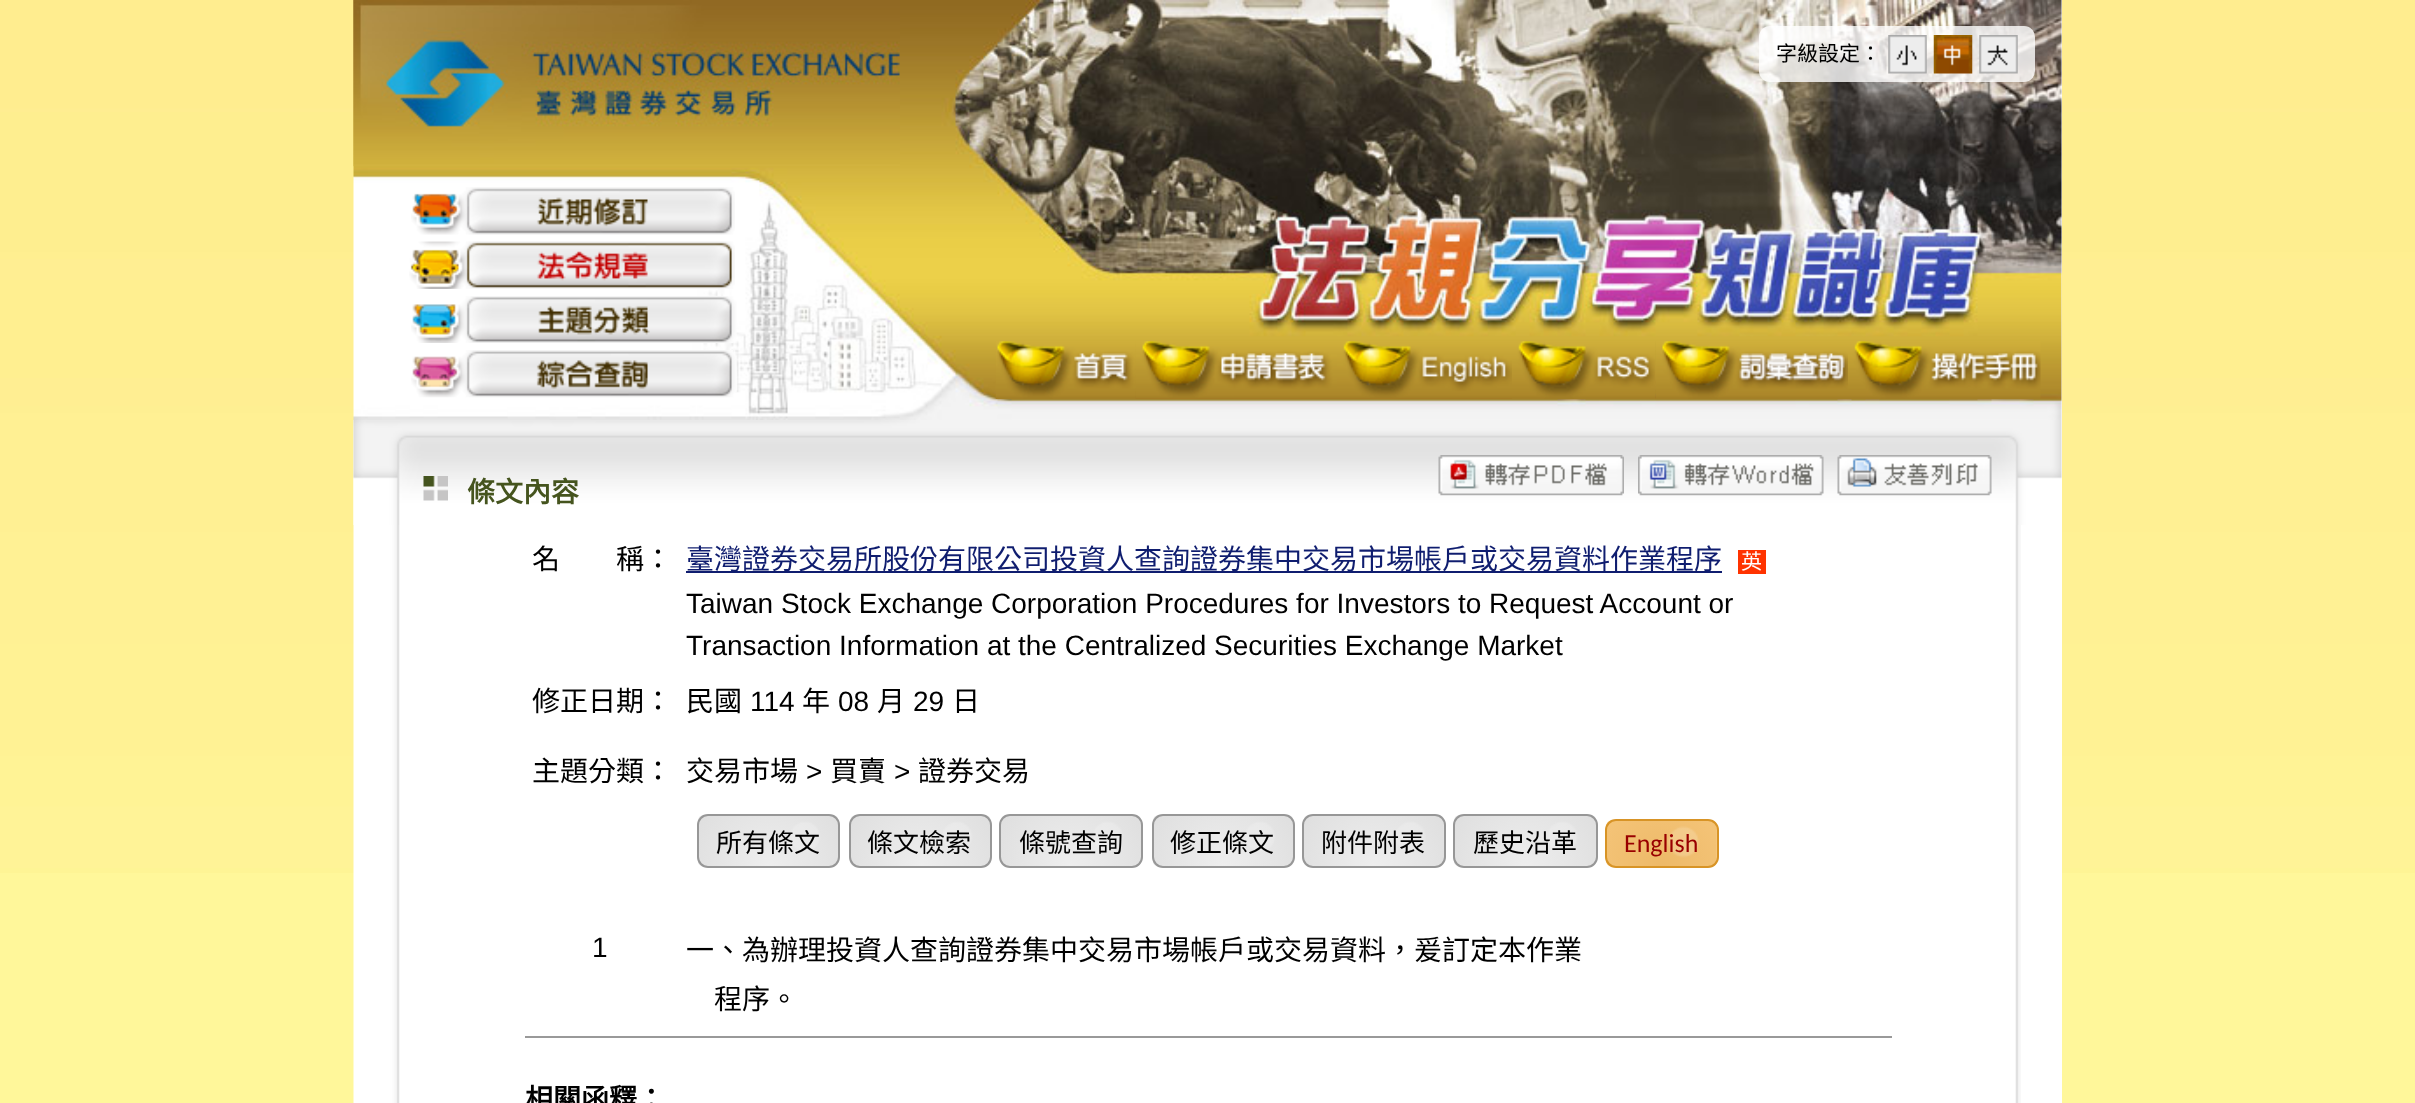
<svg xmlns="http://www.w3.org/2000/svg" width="2415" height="1103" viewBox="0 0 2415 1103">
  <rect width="100%" height="100%" fill="#fff79a"/>
  <image x="0" y="0" width="2415" height="873" href="img/1.png"/>
  <path d="M2061 0h1v420H2061z" fill="#fff"/>
  <image x="353" y="0" width="1709" height="420" href="img/2.png"/>
  <image x="353" y="0" width="547" height="167" href="img/3.png"/>
  <image x="411" y="187" width="324" height="48" href="img/4.png"/>
  <image x="409" y="241" width="326" height="48" href="img/5.png"/>
  <image x="411" y="296" width="326" height="47" href="img/6.png"/>
  <image x="411" y="350" width="326" height="48" href="img/7.png"/>
  <image x="995" y="341" width="141" height="58" href="img/8.png"/>
  <image x="1136" y="341" width="201" height="57" href="img/9.png"/>
  <image x="1337" y="341" width="175" height="57" href="img/10.png"/>
  <image x="1512" y="341" width="143" height="58" href="img/11.png"/>
  <image x="1656" y="341" width="192" height="58" href="img/12.png"/>
  <image x="1848" y="341" width="193" height="58" href="img/13.png"/>
  <rect x="1759" y="26" width="276" height="56" rx="11" fill="#ffffffcc"/>
  <image x="1888" y="35" width="39" height="39" href="img/14.png"/>
  <image x="1933" y="35" width="40" height="39" href="img/15.png"/>
  <image x="1979" y="35" width="39" height="39" href="img/16.png"/>
  <path d="M2021 420h41v683H2021z" fill="#fff"/>
  <image x="353" y="420" width="1668" height="683" href="img/17.png"/>
  <image x="353" y="420" width="1709" height="105" href="img/18.png"/>
  <image x="423" y="476" width="25" height="25" href="img/19.png"/>
  <image x="1438" y="455" width="186" height="41" href="img/20.png"/>
  <image x="1638" y="455" width="186" height="41" href="img/21.png"/>
  <image x="1837" y="455" width="155" height="41" href="img/22.png"/>
  <path d="M686 571h1036v2H686z" fill="#0f1d6f"/>
  <path d="M1738 550h28v24H1738z" fill="#f30"/>
  <image x="698" y="815" width="141" height="52" href="img/23.png"/>
  <rect x="698" y="815" width="141" height="52" rx="10" fill="none" stroke="#979797" stroke-width="2"/>
  <image x="850" y="815" width="141" height="52" href="img/24.png"/>
  <rect x="850" y="815" width="141" height="52" rx="10" fill="none" stroke="#979797" stroke-width="2"/>
  <image x="1001" y="815" width="140" height="52" href="img/25.png"/>
  <rect x="1000" y="815" width="142" height="52" rx="10" fill="none" stroke="#979797" stroke-width="2"/>
  <image x="1153" y="815" width="141" height="52" href="img/26.png"/>
  <rect x="1153" y="815" width="141" height="52" rx="10" fill="none" stroke="#979797" stroke-width="2"/>
  <image x="1303" y="815" width="141" height="52" href="img/27.png"/>
  <rect x="1303" y="815" width="142" height="52" rx="10" fill="none" stroke="#979797" stroke-width="2"/>
  <image x="1454" y="815" width="142" height="52" href="img/28.png"/>
  <rect x="1454" y="815" width="143" height="52" rx="10" fill="none" stroke="#979797" stroke-width="2"/>
  <image x="1606" y="820" width="111" height="47" href="img/29.png"/>
  <rect x="1606" y="820" width="112" height="47" rx="10" fill="none" stroke="#d89426" stroke-width="2"/>
  <path d="M525 1036h1367v2H525z" fill="#999"/>
  <text x="1776" y="61" font-family="Noto Sans CJK TC" font-size="21" fill="#000">字級設定：</text>
  <text x="467" y="502" font-family="Noto Sans CJK TC" font-size="28" font-weight="bold" fill="#45541e">條文內容</text>
  <text x="532" y="569" font-family="Noto Sans CJK TC" font-size="28" fill="#000">名　　稱：</text>
  <text x="686" y="569" font-family="Noto Sans CJK TC" font-size="28" fill="#0f1d6f">臺灣證券交易所股份有限公司投資人查詢證券集中交易市場帳戶或交易資料作業程序</text>
  <text x="1741" y="569" font-family="Noto Sans CJK TC" font-size="21" fill="#fff">英</text>
  <g font-family="Liberation Sans" font-size="28" fill="#000">
    <text x="686" y="613">Taiwan Stock Exchange Corporation Procedures for Investors to Request Account or</text>
    <text x="686" y="655">Transaction Information at the Centralized Securities Exchange Market</text>
  </g>
  <g font-family="Noto Sans CJK TC" font-size="28" fill="#000">
    <text x="532" y="711">修正日期：</text>
    <text x="686" y="711">民國</text>
  </g>
  <text x="750" y="711" font-family="Liberation Sans" font-size="28" fill="#000">114</text>
  <text x="802" y="711" font-family="Noto Sans CJK TC" font-size="28" fill="#000">年</text>
  <text x="838" y="711" font-family="Liberation Sans" font-size="28" fill="#000">08</text>
  <text x="877" y="711" font-family="Noto Sans CJK TC" font-size="28" fill="#000">月</text>
  <text x="913" y="711" font-family="Liberation Sans" font-size="28" fill="#000">29</text>
  <g font-family="Noto Sans CJK TC" font-size="28" fill="#000">
    <text x="952" y="711">日</text>
    <text x="532" y="781">主題分類：</text>
    <text x="686" y="781">交易市場</text>
  </g>
  <text x="806" y="781" font-family="Liberation Sans" font-size="28" fill="#000">&gt;</text>
  <text x="830" y="781" font-family="Noto Sans CJK TC" font-size="28" fill="#000">買賣</text>
  <text x="894" y="781" font-family="Liberation Sans" font-size="28" fill="#000">&gt;</text>
  <text x="918" y="781" font-family="Noto Sans CJK TC" font-size="28" fill="#000">證券交易</text>
  <g font-family="Noto Sans CJK TC" font-size="26" fill="#000">
    <text x="716" y="852">所有條文</text>
    <text x="867" y="852">條文檢索</text>
    <text x="1019" y="852">條號查詢</text>
    <text x="1170" y="852">修正條文</text>
    <text x="1321" y="852">附件附表</text>
    <text x="1473" y="852">歷史沿革</text>
  </g>
  <text x="1624" y="852" font-family="Carlito" font-size="26" fill="#900">English</text>
  <text x="592" y="957" font-family="Liberation Sans" font-size="28" fill="#000">1</text>
  <g font-family="Noto Sans CJK TC" font-size="28" fill="#000">
    <text x="686" y="960">一、為辦理投資人查詢證券集中交易市場帳戶或交易資料，爰訂定本作業</text>
    <text x="714" y="1009">程序。</text>
  </g>
  <text x="525" y="1109" font-family="Noto Sans CJK TC" font-size="28" font-weight="bold" fill="#000">相關函釋：</text>
</svg>
